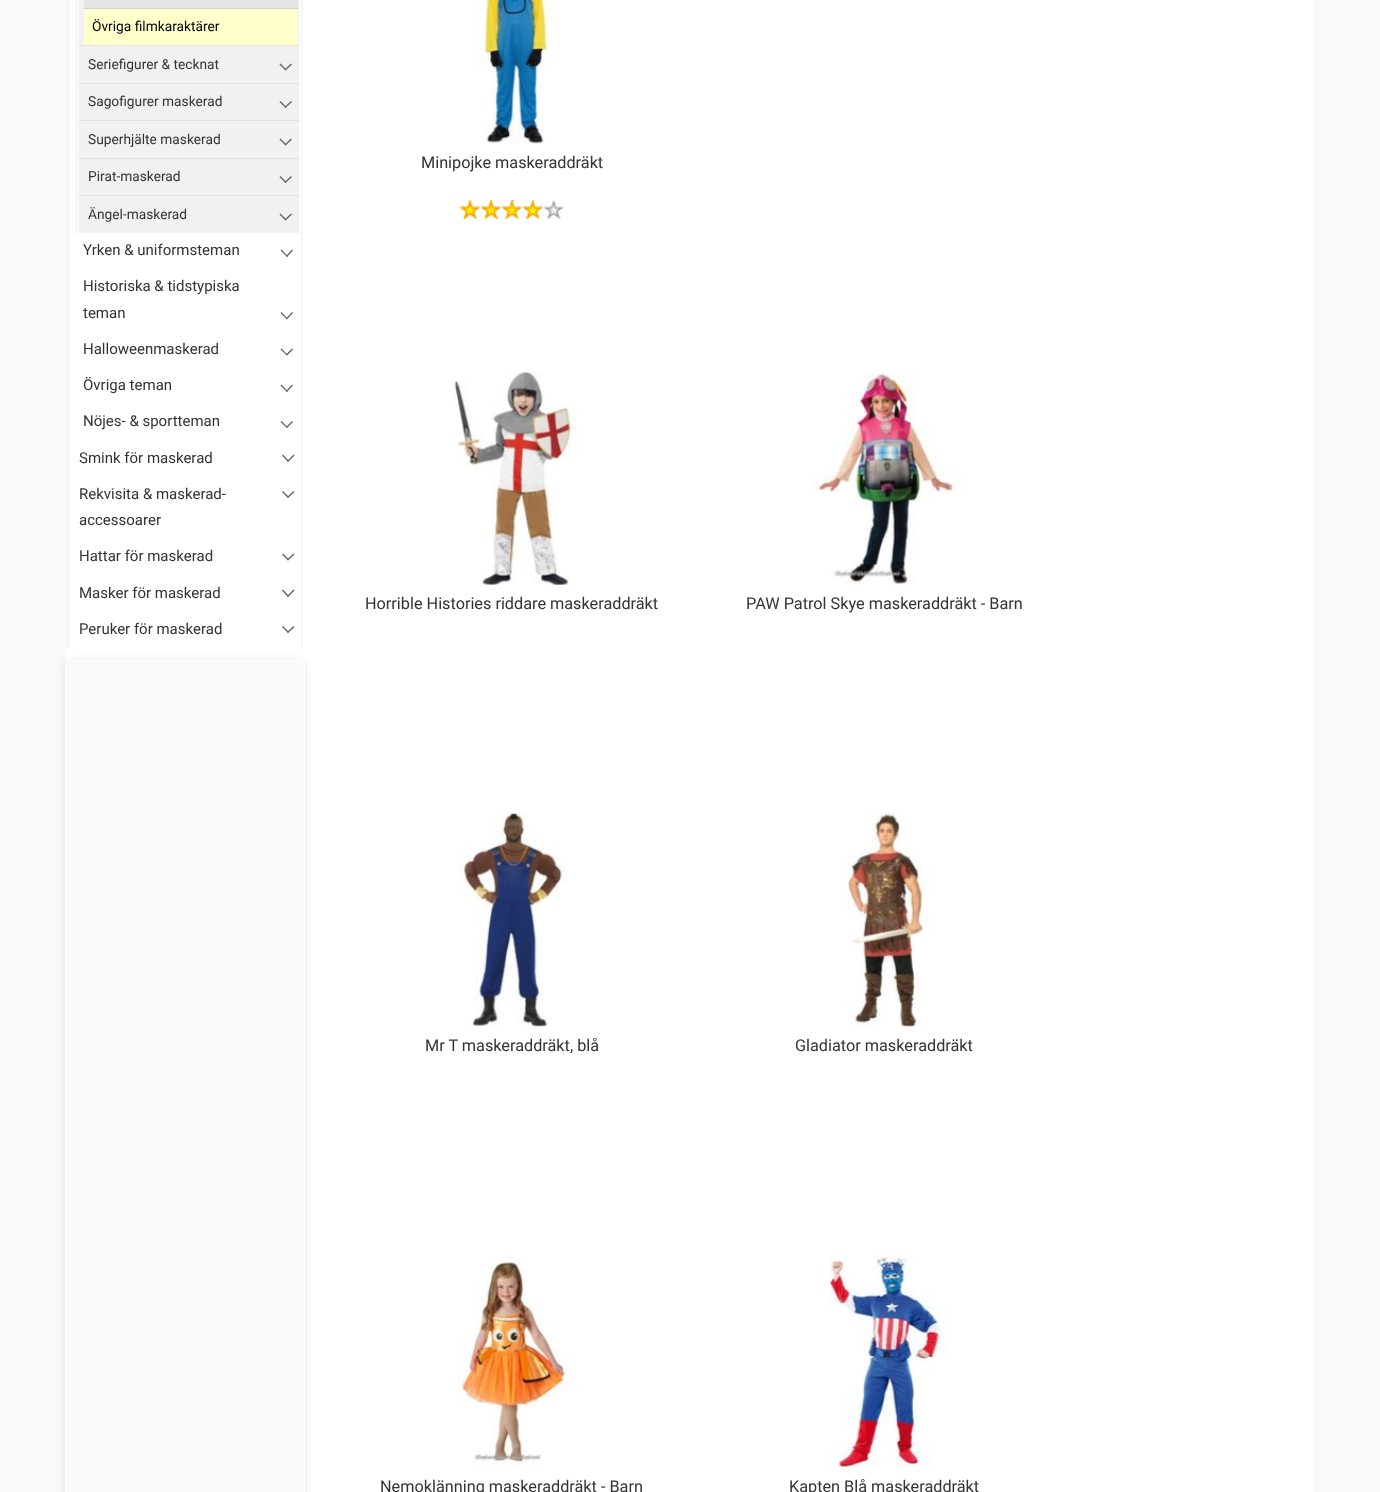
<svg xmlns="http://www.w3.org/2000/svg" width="1380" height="1492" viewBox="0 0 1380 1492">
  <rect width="100%" height="100%" fill="#f9f9f9"/>
  <path d="M65 0h1248v1492H65z" fill="#fff"/>
  <path d="M65 0h238v648H65z" fill="#f7f7f7"/>
  <path d="M70 0h231v648H70z" fill="#fff"/>
  <path d="M75 0h225v233H75z" fill="#f8f8f8"/>
  <path d="M79 0h220v45H79z" fill="#f1f1f1"/>
  <path d="M84 0h214v8H84z" fill="#e5e5e5"/>
  <path d="M84 9h214v36H84z" fill="#ffffcb"/>
  <path d="M84 8h214v1H84z" fill="#d1d1d1"/>
  <path d="M79 46h220v37H79z" fill="#f1f1f1"/>
  <path d="M79 45h220v1H79z" fill="#e1e1e1"/>
  <path d="M284.5 69.5L291 63.5L292 64.5L285.5 70.5Z" fill="#666"/>
  <path d="M79 84h220v36H79z" fill="#f1f1f1"/>
  <path d="M79 83h220v1H79z" fill="#e1e1e1"/>
  <path d="M279.5 64.5L280.5 63.5L286.5 69.5L285.5 70.5ZM284.5 107L291 101L292 102L285.5 108Z" fill="#666"/>
  <path d="M79 121h220v37H79z" fill="#f1f1f1"/>
  <path d="M79 120h220v1H79z" fill="#e1e1e1"/>
  <path d="M279.5 102L280.5 101L286.5 107L285.5 108ZM284.5 144.5L291 138.5L292 139.5L285.5 145.5Z" fill="#666"/>
  <path d="M79 159h220v36H79z" fill="#f1f1f1"/>
  <path d="M79 158h220v1H79z" fill="#e1e1e1"/>
  <path d="M279.5 139.5L280.5 138.5L286.5 144.5L285.5 145.5ZM284.5 182L291 176L292 177L285.5 183Z" fill="#666"/>
  <path d="M79 196h220v37H79z" fill="#f1f1f1"/>
  <path d="M79 195h220v1H79z" fill="#e1e1e1"/>
  <path d="M279.5 177L280.5 176L286.5 182L285.5 183ZM284.5 219.5L291 213.5L292 214.5L285.5 220.5Z" fill="#666"/>
  <path d="M279.5 214.5L280.5 213.5L286.5 219.5L285.5 220.5ZM286 256L292 249.5L293 250.5L287 257Z" fill="#666"/>
  <path d="M280.5 250.5L281.5 249.5L287.5 256L287 257Z" fill="#666"/>
  <path d="M286 318.5L292 312L293 313L287 319.5Z" fill="#666"/>
  <path d="M280.5 313L281.5 312L287.5 318.5L287 319.5ZM286 354.5L292 348.5L293 349.5L287 355.5Z" fill="#666"/>
  <path d="M280.5 349.5L281.5 348.5L287.5 354.5L287 355.5ZM286 391L292 384.5L293 385.5L287 392Z" fill="#666"/>
  <path d="M280.5 385.5L281.5 384.5L287.5 391L287 392ZM286 427L292 421L293 422L287 428Z" fill="#666"/>
  <path d="M280.5 422L281.5 421L287.5 427L287 428ZM287 461L293.5 454.5L294.5 455.5L288 462Z" fill="#666"/>
  <path d="M282 455.5L283 454.5L289 461L288 462ZM287 497L293.5 491L294.5 492L288 498Z" fill="#666"/>
  <path d="M282 492L283 491L289 497L288 498Z" fill="#666"/>
  <path d="M287 559.5L293.5 553.5L294.5 554.5L288 560.5Z" fill="#666"/>
  <path d="M282 554.5L283 553.5L289 559.5L288 560.5ZM287 596L293.5 589.5L294.5 590.5L288 597Z" fill="#666"/>
  <path d="M282 590.5L283 589.5L289 596L288 597ZM287 632L293.5 626L294.5 627L288 633Z" fill="#666"/>
  <path d="M282 627L283 626L289 632L288 633Z" fill="#666"/>
  <rect x="65" y="661" width="240" height="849" rx="6" fill="#0000001a" filter="blur(4px)"/>
  <rect x="65.5" y="660.5" width="239" height="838" rx="5.5" fill="#fafafa" stroke="#fff"/>
  <image x="474" y="0" width="85" height="144" href="img/1.png"/>
  <image x="460" y="200" width="104" height="19" href="img/2.png"/>
  <image x="453" y="372" width="124" height="213" href="img/3.png"/>
  <image x="813" y="372" width="153" height="213" href="img/4.png"/>
  <image x="458" y="813" width="110" height="214" href="img/5.png"/>
  <image x="846" y="813" width="86" height="214" href="img/6.png"/>
  <image x="457" y="1255" width="120" height="212" href="img/7.png"/>
  <image x="829" y="1255" width="120" height="213" href="img/8.png"/>
  <text x="92" y="31" font-family="Roboto" font-size="13.75" fill="#000">Övriga filmkaraktärer</text>
  <g font-family="Roboto" font-size="13.75" fill="#333">
    <text x="88" y="69">Seriefigurer &amp; tecknat</text>
    <text x="88" y="106">Sagofigurer maskerad</text>
    <text x="88" y="144">Superhjälte maskerad</text>
    <text x="88" y="181">Pirat-maskerad</text>
    <text x="88" y="219">Ängel-maskerad</text>
  </g>
  <g font-family="Roboto" font-size="15" fill="#333">
    <text x="83" y="255">Yrken &amp; uniformsteman</text>
    <text x="83" y="291">Historiska &amp; tidstypiska</text>
    <text x="83" y="318">teman</text>
    <text x="83" y="354">Halloweenmaskerad</text>
    <text x="83" y="390">Övriga teman</text>
    <text x="83" y="426">Nöjes- &amp; sportteman</text>
    <text x="79" y="463">Smink för maskerad</text>
    <text x="79" y="499">Rekvisita &amp; maskerad-</text>
    <text x="79" y="525">accessoarer</text>
    <text x="79" y="561">Hattar för maskerad</text>
    <text x="79" y="598">Masker för maskerad</text>
    <text x="79" y="634">Peruker för maskerad</text>
  </g>
  <g font-family="Roboto" font-size="16.25" fill="#333">
    <text x="421" y="168">Minipojke maskeraddräkt</text>
    <text x="365" y="609">Horrible Histories riddare maskeraddräkt</text>
    <text x="746" y="609">PAW Patrol Skye maskeraddräkt - Barn</text>
    <text x="425" y="1051">Mr T maskeraddräkt, blå</text>
    <text x="795" y="1051">Gladiator maskeraddräkt</text>
    <text x="380" y="1492">Nemoklänning maskeraddräkt - Barn</text>
    <text x="789" y="1492">Kapten Blå maskeraddräkt</text>
  </g>
</svg>
